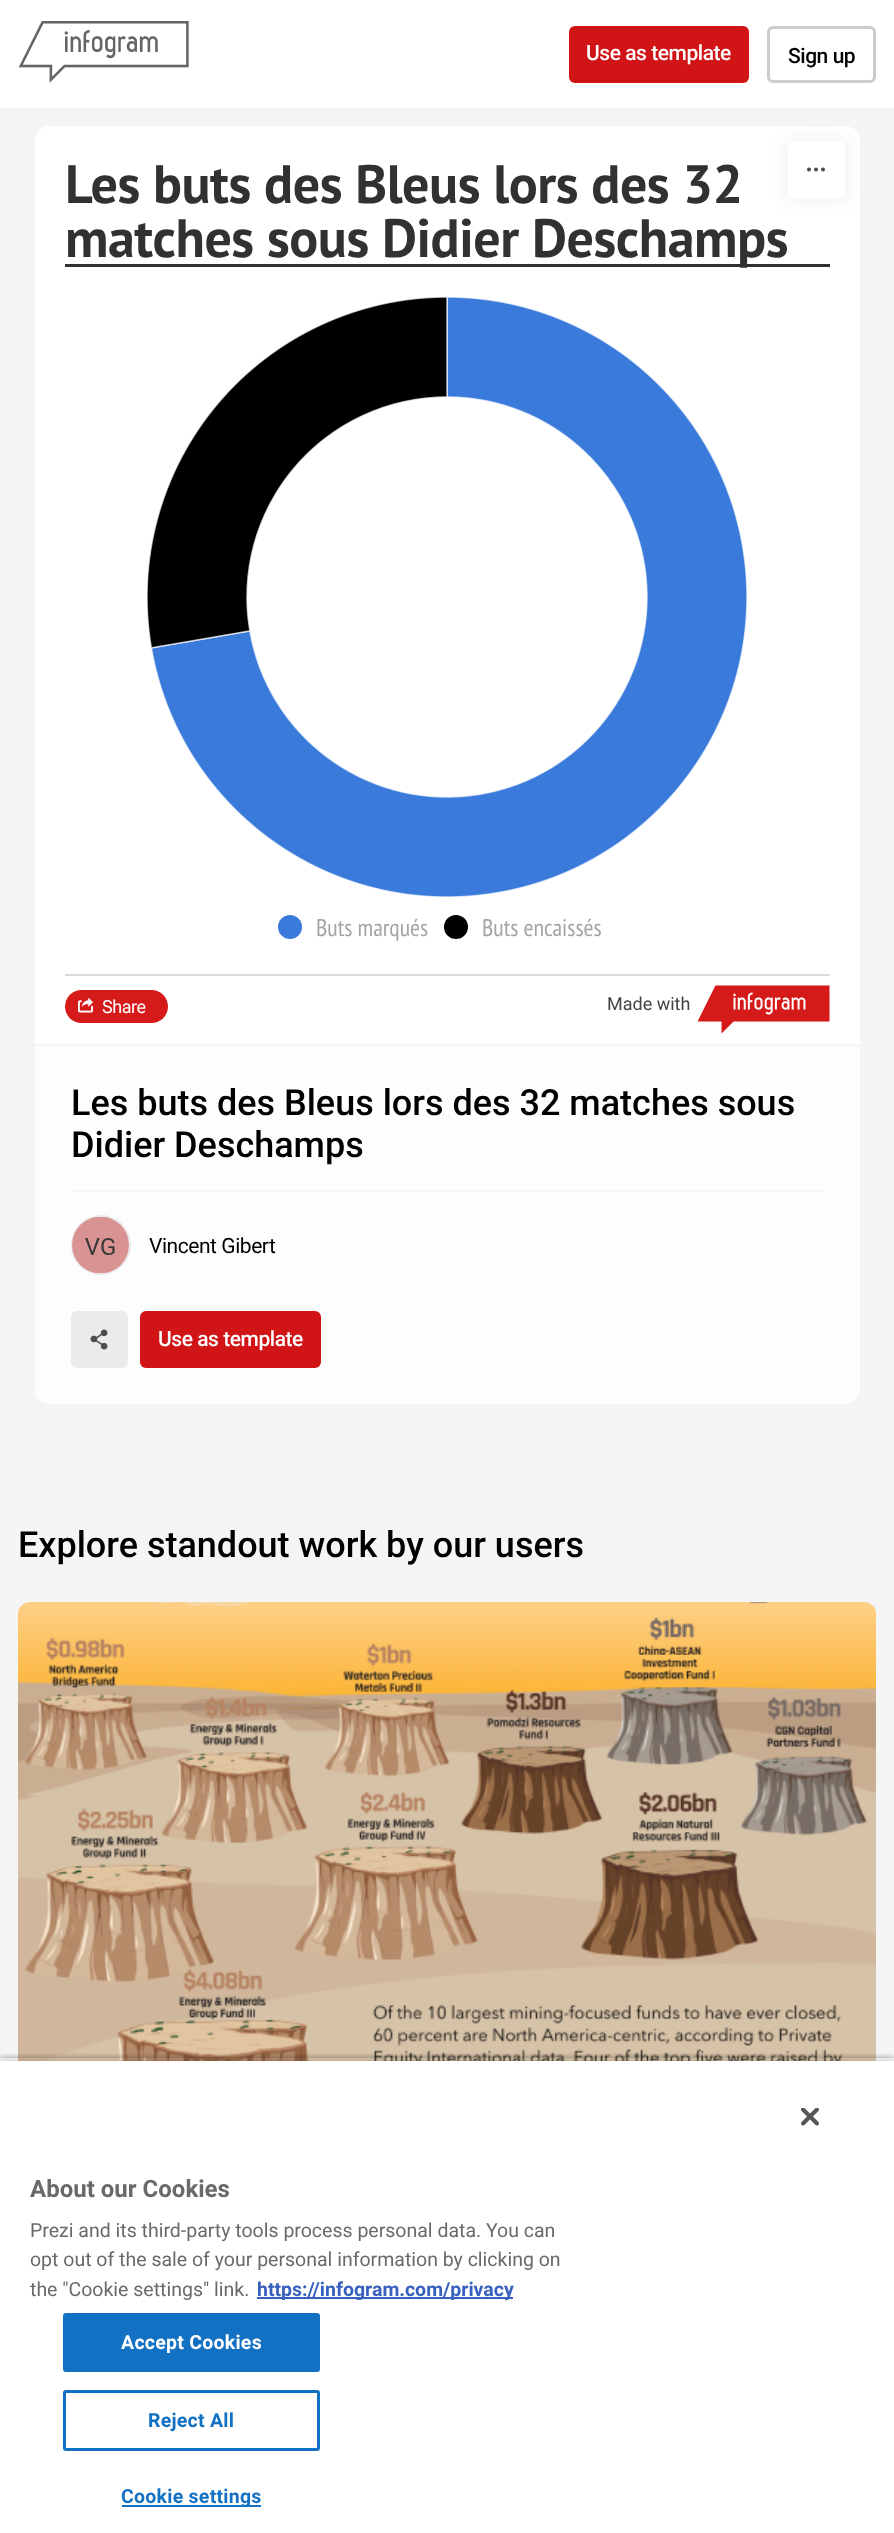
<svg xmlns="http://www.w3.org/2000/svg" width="894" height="2533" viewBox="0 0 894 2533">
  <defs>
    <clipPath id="clip1"><path d="M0 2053h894v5H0z"/></clipPath>
  </defs>
  <rect width="100%" height="100%" fill="#f5f5f6"/>
  <path d="M0 0h894v108H0z" fill="#fff"/>
  <image x="18" y="21" width="171" height="62" href="img/1.png"/>
  <rect x="569" y="26" width="180" height="57" rx="6" fill="#d11416"/>
  <rect x="768.5" y="27.5" width="106" height="54" rx="4.5" fill="none" stroke="#ccc" stroke-width="3"/>
  <path d="M50 126H845C853.5 126 860 132.5 860 141V1044H35V141C35 132.5 41.5 126 50 126Z" fill="#fff"/>
  <path d="M65 264h765v3H65z" fill="#313131"/>
  <image x="147" y="297" width="600" height="600" href="img/2.png"/>
  <circle cx="290" cy="927" r="12" fill="#397adb"/>
  <circle cx="456" cy="927" r="12" fill="#000"/>
  <path d="M65 974h765v2H65z" fill="#dadada"/>
  <rect x="65" y="990" width="103" height="33" rx="16.5" fill="#d51a1a"/>
  <image x="78" y="998" width="15" height="15" href="img/3.png"/>
  <image x="698" y="985" width="132" height="49" href="img/4.png"/>
  <rect x="782" y="135" width="69" height="69" rx="12" fill="#0000000a" filter="blur(7.5px)"/>
  <rect x="788" y="141" width="57" height="57" rx="6" fill="#fff"/>
  <image x="807" y="167" width="18" height="5" href="img/5.png"/>
  <path d="M35 1044H860V1389C860 1397.5 853.5 1404 845 1404H50C41.5 1404 35 1397.5 35 1389Z" fill="#fdfdfd"/>
  <path d="M35 1044h825v2H35z" fill="#f5f5f6"/>
  <path d="M71 1190h753v2H71z" fill="#f5f5f6"/>
  <circle cx="101" cy="1245" r="29" fill="none" stroke="#ebebee" stroke-width="2"/>
  <image x="72" y="1217" width="57" height="57" href="img/6.png"/>
  <rect x="71" y="1311" width="57" height="57" rx="6" fill="#ebebee"/>
  <image x="90" y="1329" width="18" height="21" href="img/7.png"/>
  <rect x="140" y="1311" width="181" height="57" rx="6" fill="#d11416"/>
  <image x="18" y="1602" width="858" height="459" href="img/8.png"/>
  <g clip-path="url(#clip1)">
    <path d="M0 2058h894v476H0z" fill="#00000059" filter="blur(3px)"/>
  </g>
  <path d="M0 2061h894v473H0z" fill="#00000033" filter="blur(3px)"/>
  <path d="M0 2061h894v472H0z" fill="#fff"/>
  <image x="801" y="2108" width="18" height="18" href="img/9.png"/>
  <path d="M257 2297h256v2H257z" fill="#3860be"/>
  <rect x="64" y="2314" width="255" height="57" rx="2" fill="#1371c3" stroke="#1371c3" stroke-width="2"/>
  <rect x="64.5" y="2391.5" width="254" height="58" rx="1.5" fill="none" stroke="#1371c3" stroke-width="3"/>
  <path d="M122 2505h139v2H122z" fill="#1371c3"/>
  <text x="586" y="60" font-family="Roboto" font-size="21" font-weight="500" letter-spacing="-0.45" fill="#fff">Use as template</text>
  <text x="788" y="63" font-family="Roboto" font-size="21" font-weight="500" letter-spacing="-0.45" fill="#000">Sign up</text>
  <g font-family="PT Sans" font-size="54" font-weight="bold" letter-spacing="-0.45" fill="#313131">
    <text x="65" y="203">Les buts des Bleus lors des 32</text>
    <text x="65" y="257">matches sous Didier Deschamps</text>
  </g>
  <g font-family="PT Sans Narrow" font-size="24" fill="#a4a4a4">
    <text x="316" y="936">Buts marqués</text>
    <text x="482" y="936">Buts encaissés</text>
  </g>
  <text x="102" y="1013" font-family="Roboto" font-size="18" letter-spacing="-0.45" fill="#fff">Share</text>
  <text x="607" y="1010" font-family="Roboto" font-size="18" fill="#434343">Made with</text>
  <g font-family="Roboto" font-size="36" font-weight="500" fill="#000">
    <text x="71" y="1115">Les buts des Bleus lors des 32 matches sous</text>
    <text x="71" y="1157">Didier Deschamps</text>
  </g>
  <text x="149" y="1253" font-family="Roboto" font-size="21" letter-spacing="-0.45" fill="#000">Vincent Gibert</text>
  <text x="158" y="1346" font-family="Roboto" font-size="21" font-weight="500" letter-spacing="-0.45" fill="#fff">Use as template</text>
  <text x="18" y="1557" font-family="Roboto" font-size="36" font-weight="500" fill="#000">Explore standout work by our users</text>
  <text x="30" y="2197" font-family="Roboto" font-size="24" font-weight="bold" fill="#696969">About our Cookies</text>
  <g font-family="Roboto" font-size="19.5" fill="#696969">
    <text x="30" y="2237">Prezi and its third-party tools process personal data. You can</text>
    <text x="30" y="2266">opt out of the sale of your personal information by clicking on</text>
    <text x="30" y="2296">the "Cookie settings" link.</text>
  </g>
  <text x="257" y="2296" font-family="Roboto" font-size="19.5" font-weight="bold" fill="#3860be">https://infogram.com/privacy</text>
  <text x="121" y="2349" font-family="Roboto" font-size="19.5" font-weight="bold" letter-spacing="0.25" fill="#fff">Accept Cookies</text>
  <g font-family="Roboto" font-size="19.5" font-weight="bold" letter-spacing="0.25" fill="#1371c3">
    <text x="148" y="2427">Reject All</text>
    <text x="121" y="2503">Cookie settings</text>
  </g>
</svg>
